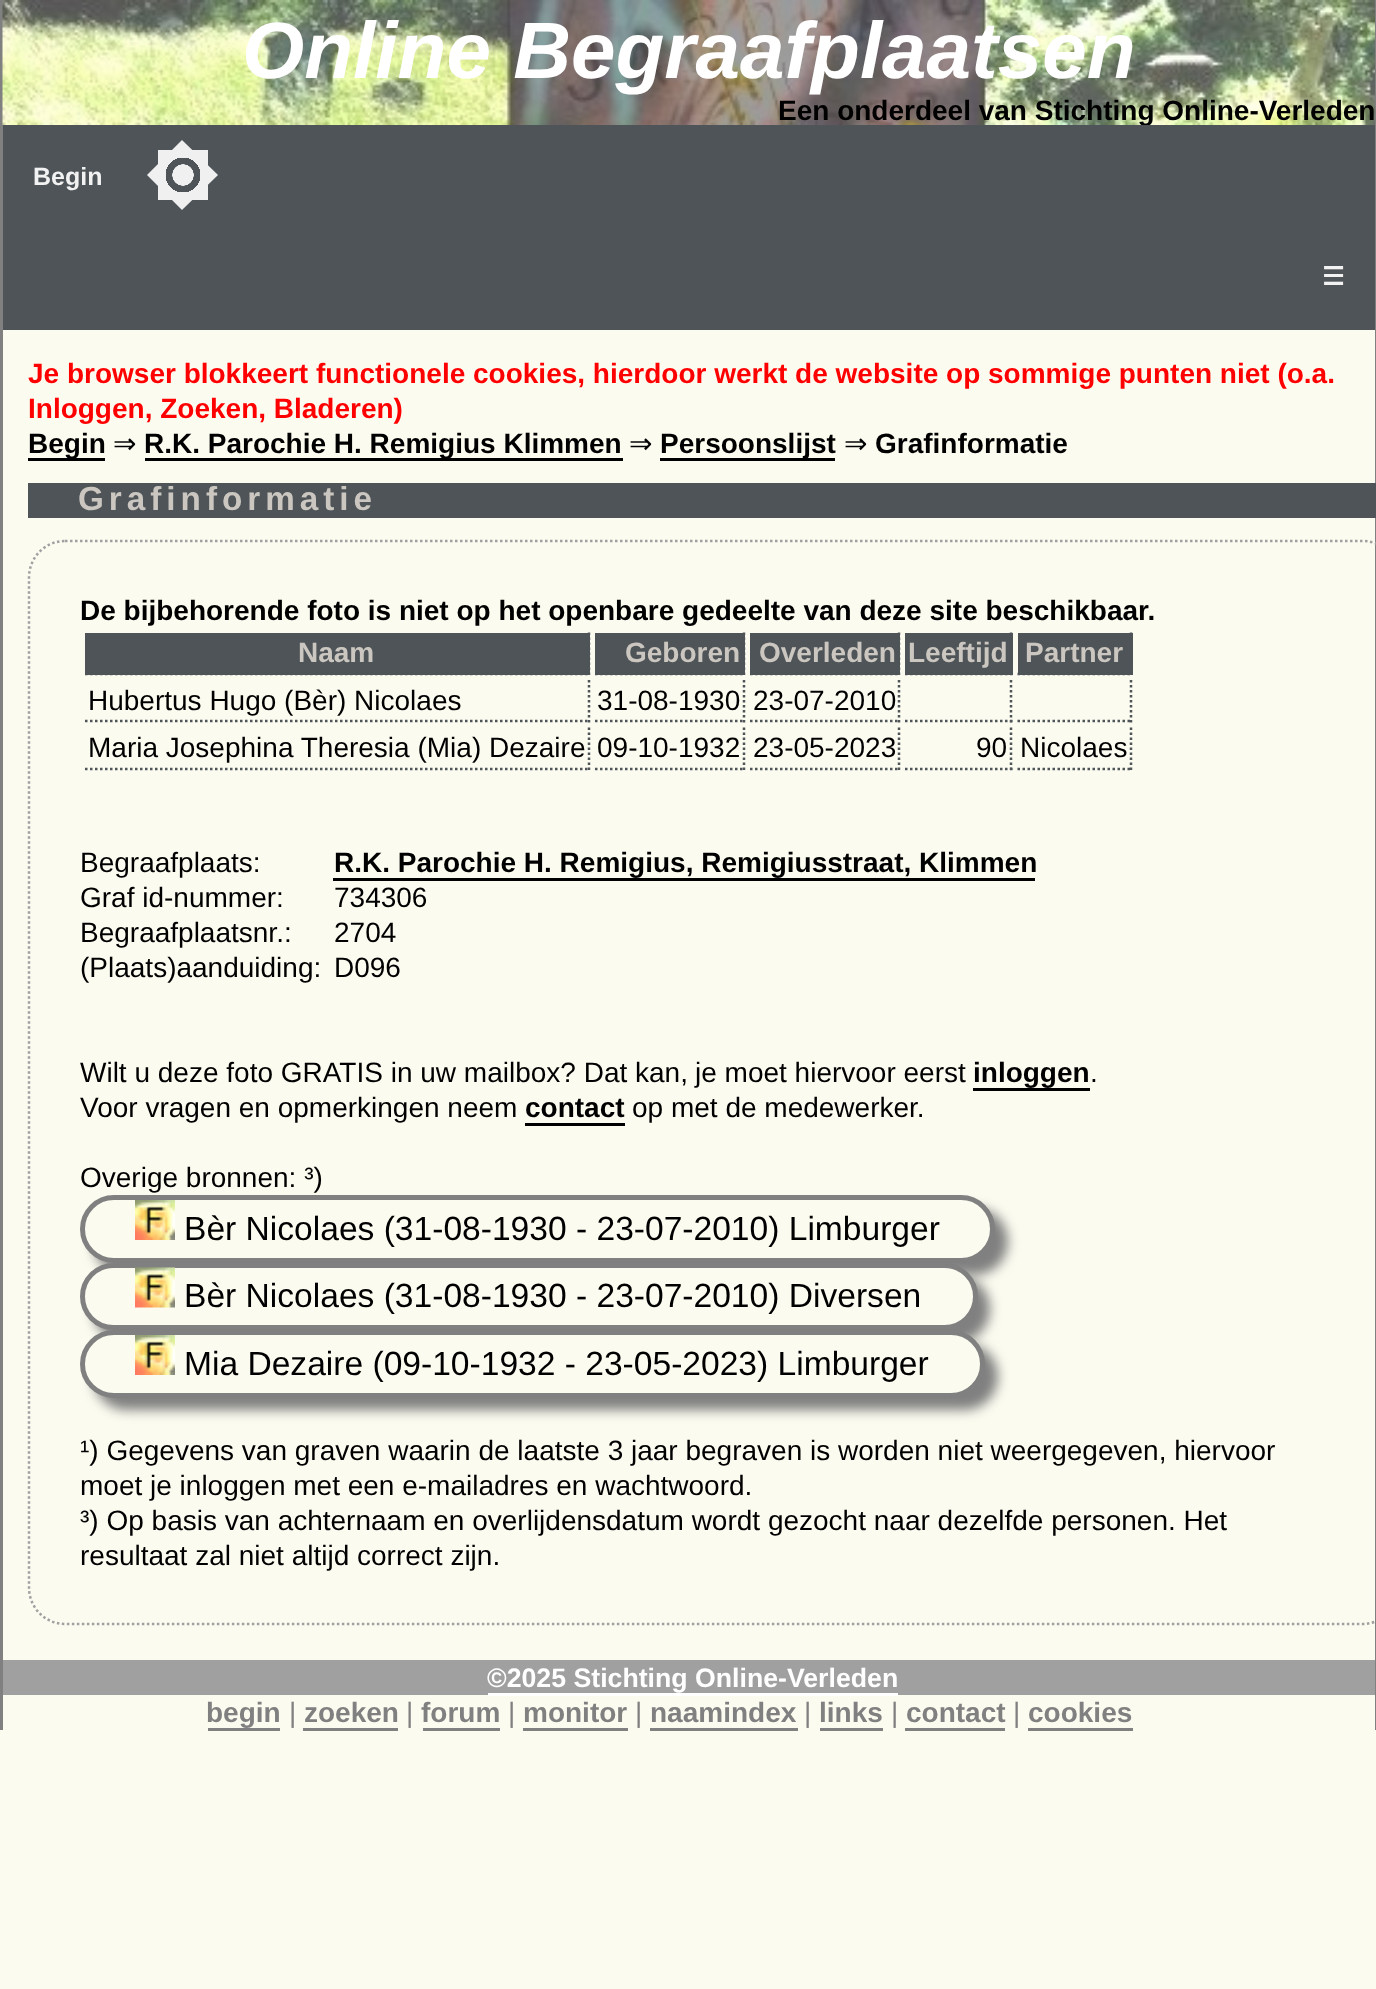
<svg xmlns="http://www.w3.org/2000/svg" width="1376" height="1989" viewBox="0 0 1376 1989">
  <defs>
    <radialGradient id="g1" gradientUnits="userSpaceOnUse" cx="183" cy="175" r="35"><stop offset="0" stop-color="#4e5457"/><stop offset="0.5" stop-color="#4e5457"/><stop offset="0.5" stop-color="#f0f0f0"/></radialGradient>
    <radialGradient id="g2" gradientUnits="userSpaceOnUse" cx="183" cy="175" r="35"><stop offset="0.3" stop-color="#f0f0f0"/><stop offset="0.31" stop-color="#f0f0f0" stop-opacity="0"/><stop offset="0.5" stop-color="#f0f0f0" stop-opacity="0"/><stop offset="0.5" stop-color="#f0f0f0"/></radialGradient>
  </defs>
  <rect width="100%" height="100%" fill="#fcfbf0"/>
  <path d="M1375 0h1v1730H1375z" fill="#808080"/>
  <path d="M0 0h3v1730H0z" fill="#808080"/>
  <image x="2" y="0" width="1373" height="125" href="img/1.png"/>
  <path d="M28 458h77v3H28z" fill="#000"/>
  <path d="M145 458h478v3H145z" fill="#000"/>
  <path d="M660 458h175v3H660z" fill="#000"/>
  <path d="M28 483h1348v35H28z" fill="#4e5457"/>
  <path d="M65 541H1362.5C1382.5 541 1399 557.5 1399 577.5V1587.5C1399 1607.5 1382.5 1624 1362.5 1624H65C45 1624 29 1607.5 29 1587.5V577.5C29 557.5 45 541 65 541Z" fill="none" stroke="#a0a0a0" stroke-width="2.5" stroke-dasharray="2.5 2.5"/>
  <path d="M85 633h505v42H85z" fill="#4e5457"/>
  <path d="M589 632.5V675" fill="none" stroke="#4e5457" stroke-width="2.5" stroke-dasharray="2.5 2.5"/>
  <path d="M85 674H590" fill="none" stroke="#4e5457" stroke-width="2.5" stroke-dasharray="2.5 2.5"/>
  <path d="M595 633h150v42H595z" fill="#4e5457"/>
  <path d="M744 632.5V675" fill="none" stroke="#4e5457" stroke-width="2.5" stroke-dasharray="2.5 2.5"/>
  <path d="M595 674H745" fill="none" stroke="#4e5457" stroke-width="2.5" stroke-dasharray="2.5 2.5"/>
  <path d="M750 633h150v42H750z" fill="#4e5457"/>
  <path d="M899 632.5V675" fill="none" stroke="#4e5457" stroke-width="2.5" stroke-dasharray="2.5 2.5"/>
  <path d="M750 674H900" fill="none" stroke="#4e5457" stroke-width="2.5" stroke-dasharray="2.5 2.5"/>
  <path d="M905 633h108v42H905z" fill="#4e5457"/>
  <path d="M1011 632.5V675" fill="none" stroke="#4e5457" stroke-width="2.5" stroke-dasharray="2.5 2.5"/>
  <path d="M905 674H1012.5" fill="none" stroke="#4e5457" stroke-width="2.5" stroke-dasharray="2.5 2.5"/>
  <path d="M1018 633h115v42H1018z" fill="#4e5457"/>
  <path d="M1131 632.5V675" fill="none" stroke="#4e5457" stroke-width="2.5" stroke-dasharray="2.5 2.5"/>
  <path d="M1017.5 674H1132.5" fill="none" stroke="#4e5457" stroke-width="2.5" stroke-dasharray="2.5 2.5"/>
  <path d="M589 680V722.5" fill="none" stroke="#4e5457" stroke-width="2.5" stroke-dasharray="2.5 2.5"/>
  <path d="M85 721H590" fill="none" stroke="#4e5457" stroke-width="2.5" stroke-dasharray="2.5 2.5"/>
  <path d="M744 680V722.5" fill="none" stroke="#4e5457" stroke-width="2.5" stroke-dasharray="2.5 2.5"/>
  <path d="M595 721H745" fill="none" stroke="#4e5457" stroke-width="2.5" stroke-dasharray="2.5 2.5"/>
  <path d="M899 680V722.5" fill="none" stroke="#4e5457" stroke-width="2.5" stroke-dasharray="2.5 2.5"/>
  <path d="M750 721H900" fill="none" stroke="#4e5457" stroke-width="2.5" stroke-dasharray="2.5 2.5"/>
  <path d="M1011 680V722.5" fill="none" stroke="#4e5457" stroke-width="2.5" stroke-dasharray="2.5 2.5"/>
  <path d="M905 721H1012.5" fill="none" stroke="#4e5457" stroke-width="2.5" stroke-dasharray="2.5 2.5"/>
  <path d="M1131 680V722.5" fill="none" stroke="#4e5457" stroke-width="2.5" stroke-dasharray="2.5 2.5"/>
  <path d="M1017.5 721H1132.5" fill="none" stroke="#4e5457" stroke-width="2.5" stroke-dasharray="2.5 2.5"/>
  <path d="M589 727.5V770" fill="none" stroke="#4e5457" stroke-width="2.5" stroke-dasharray="2.5 2.5"/>
  <path d="M85 769H590" fill="none" stroke="#4e5457" stroke-width="2.5" stroke-dasharray="2.5 2.5"/>
  <path d="M744 727.5V770" fill="none" stroke="#4e5457" stroke-width="2.5" stroke-dasharray="2.5 2.5"/>
  <path d="M595 769H745" fill="none" stroke="#4e5457" stroke-width="2.5" stroke-dasharray="2.5 2.5"/>
  <path d="M899 727.5V770" fill="none" stroke="#4e5457" stroke-width="2.5" stroke-dasharray="2.5 2.5"/>
  <path d="M750 769H900" fill="none" stroke="#4e5457" stroke-width="2.5" stroke-dasharray="2.5 2.5"/>
  <path d="M1011 727.5V770" fill="none" stroke="#4e5457" stroke-width="2.5" stroke-dasharray="2.5 2.5"/>
  <path d="M905 769H1012.5" fill="none" stroke="#4e5457" stroke-width="2.5" stroke-dasharray="2.5 2.5"/>
  <path d="M1131 727.5V770" fill="none" stroke="#4e5457" stroke-width="2.5" stroke-dasharray="2.5 2.5"/>
  <path d="M1017.5 769H1132.5" fill="none" stroke="#4e5457" stroke-width="2.5" stroke-dasharray="2.5 2.5"/>
  <path d="M333 878h702v3H333z" fill="#000"/>
  <path d="M973 1088h117v3H973z" fill="#000"/>
  <path d="M525 1123h100v3H525z" fill="#000"/>
  <rect x="93" y="1208" width="915" height="67" rx="33.5" fill="#808080" filter="blur(6px)"/>
  <rect x="82.5" y="1197.5" width="910" height="63" rx="31.5" fill="#fcfbf0" stroke="#808080" stroke-width="5"/>
  <image x="135" y="1200" width="40" height="40" href="img/2.png"/>
  <rect x="93" y="1275" width="897" height="68" rx="34" fill="#808080" filter="blur(6px)"/>
  <rect x="82.5" y="1265.5" width="893" height="62" rx="31" fill="#fcfbf0" stroke="#808080" stroke-width="5"/>
  <image x="135" y="1267" width="40" height="41" href="img/3.png"/>
  <rect x="93" y="1343" width="905" height="67" rx="33.5" fill="#808080" filter="blur(6px)"/>
  <rect x="82.5" y="1332.5" width="900" height="63" rx="31.5" fill="#fcfbf0" stroke="#808080" stroke-width="5"/>
  <image x="135" y="1335" width="40" height="40" href="img/2.png"/>
  <path d="M3 1660h1372v35H3z" fill="#a0a0a0"/>
  <path d="M488 1693h410v3H488z" fill="#fff"/>
  <path d="M208 1728h72v3H208z" fill="#808080"/>
  <path d="M303 1728h95v3H303z" fill="#808080"/>
  <path d="M423 1728h77v3H423z" fill="#808080"/>
  <path d="M523 1728h105v3H523z" fill="#808080"/>
  <path d="M650 1728h148v3H650z" fill="#808080"/>
  <path d="M820 1728h63v3H820z" fill="#808080"/>
  <path d="M905 1728h100v3H905z" fill="#808080"/>
  <path d="M1028 1728h105v3H1028z" fill="#808080"/>
  <text x="242" y="78" font-family="Liberation Sans" font-size="80" font-weight="bold" font-style="italic" fill="#fff">Online Begraafplaatsen</text>
  <text x="778" y="120" font-family="Liberation Sans" font-size="28" font-weight="bold" fill="#000">Een onderdeel van Stichting Online-Verleden</text>
  <path d="M3 125h1372v205H3z" fill="#4e5457"/>
  <text x="33" y="185" font-family="Liberation Sans" font-size="25" font-weight="bold" fill="#f2f2f2">Begin</text>
  <path d="M158 150h50v50H158z" fill="url(#g1)"/>
  <path d="M182 210L147 175L182 140L218 175Z" fill="url(#g2)"/>
  <text x="1322" y="285" font-family="DejaVu Sans" font-size="25" font-weight="bold" fill="#f2f2f2">☰</text>
  <g font-family="Liberation Sans" font-size="28" font-weight="bold" fill="#f00">
    <text x="28" y="383">Je browser blokkeert functionele cookies, hierdoor werkt de website op sommige punten niet (o.a.</text>
    <text x="28" y="418">Inloggen, Zoeken, Bladeren)</text>
  </g>
  <text x="28" y="453" font-family="Liberation Sans" font-size="28" font-weight="bold" fill="#000">Begin</text>
  <text x="113" y="453" font-family="DejaVu Sans" font-size="28" fill="#000">⇒</text>
  <text x="144" y="453" font-family="Liberation Sans" font-size="28" font-weight="bold" fill="#000">R.K. Parochie H. Remigius Klimmen</text>
  <text x="629" y="453" font-family="DejaVu Sans" font-size="28" fill="#000">⇒</text>
  <text x="660" y="453" font-family="Liberation Sans" font-size="28" font-weight="bold" fill="#000">Persoonslijst</text>
  <text x="844" y="453" font-family="DejaVu Sans" font-size="28" fill="#000">⇒</text>
  <text x="875" y="453" font-family="Liberation Sans" font-size="28" font-weight="bold" fill="#000">Grafinformatie</text>
  <text x="78" y="510" font-family="Liberation Sans" font-size="33.25" font-weight="bold" letter-spacing="5" fill="#cbc7c0">Grafinformatie</text>
  <text x="80" y="620" font-family="Liberation Sans" font-size="28" font-weight="bold" fill="#000">De bijbehorende foto is niet op het openbare gedeelte van deze site beschikbaar.</text>
  <g font-family="Liberation Sans" font-size="28" font-weight="bold" fill="#cbc7c0">
    <text x="298" y="662">Naam</text>
    <text x="625" y="662">Geboren</text>
    <text x="759" y="662">Overleden</text>
    <text x="908" y="662">Leeftijd</text>
    <text x="1025" y="662">Partner</text>
  </g>
  <g font-family="Liberation Sans" font-size="28" fill="#000">
    <text x="88" y="710">Hubertus Hugo (Bèr) Nicolaes</text>
    <text x="597" y="710">31-08-1930</text>
    <text x="753" y="710">23-07-2010</text>
    <text x="88" y="757">Maria Josephina Theresia (Mia) Dezaire</text>
    <text x="597" y="757">09-10-1932</text>
    <text x="753" y="757">23-05-2023</text>
    <text x="976" y="757">90</text>
    <text x="1020" y="757">Nicolaes</text>
    <text x="80" y="872">Begraafplaats:</text>
  </g>
  <text x="334" y="872" font-family="Liberation Sans" font-size="28" font-weight="bold" fill="#000">R.K. Parochie H. Remigius, Remigiusstraat, Klimmen</text>
  <g font-family="Liberation Sans" font-size="28" fill="#000">
    <text x="80" y="907">Graf id-nummer:</text>
    <text x="334" y="907">734306</text>
    <text x="80" y="942">Begraafplaatsnr.:</text>
    <text x="334" y="942">2704</text>
    <text x="80" y="977">(Plaats)aanduiding:</text>
    <text x="334" y="977">D096</text>
    <text x="80" y="1082">Wilt u deze foto GRATIS in uw mailbox? Dat kan,</text>
    <text x="695" y="1082">je moet hiervoor eerst</text>
  </g>
  <text x="973" y="1082" font-family="Liberation Sans" font-size="28" font-weight="bold" fill="#000">inloggen</text>
  <g font-family="Liberation Sans" font-size="28" fill="#000">
    <text x="1090" y="1082">.</text>
    <text x="80" y="1117">Voor vragen en opmerkingen neem</text>
  </g>
  <text x="525" y="1117" font-family="Liberation Sans" font-size="28" font-weight="bold" fill="#000">contact</text>
  <g font-family="Liberation Sans" font-size="28" fill="#000">
    <text x="632" y="1117">op met de medewerker.</text>
    <text x="80" y="1187">Overige bronnen: ³)</text>
  </g>
  <g font-family="Liberation Sans" font-size="33.6" fill="#000">
    <text x="184" y="1240">Bèr Nicolaes (31-08-1930 - 23-07-2010) Limburger</text>
    <text x="184" y="1307">Bèr Nicolaes (31-08-1930 - 23-07-2010) Diversen</text>
    <text x="184" y="1375">Mia Dezaire (09-10-1932 - 23-05-2023) Limburger</text>
  </g>
  <g font-family="Liberation Sans" font-size="28" fill="#000">
    <text x="80" y="1460">¹) Gegevens van graven waarin de laatste 3 jaar begraven is worden niet weergegeven, hiervoor</text>
    <text x="80" y="1495">moet je inloggen met een e-mailadres en wachtwoord.</text>
    <text x="80" y="1530">³) Op basis van achternaam en overlijdensdatum wordt gezocht naar dezelfde personen. Het</text>
    <text x="80" y="1565">resultaat zal niet altijd correct zijn.</text>
  </g>
  <text x="487" y="1687" font-family="Liberation Sans" font-size="26.7" font-weight="bold" fill="#fff">©2025 Stichting Online-Verleden</text>
  <text x="206" y="1722" font-family="Liberation Sans" font-size="28" font-weight="bold" fill="#808080">begin</text>
  <text x="289" y="1722" font-family="Liberation Sans" font-size="28" fill="#808080">|</text>
  <text x="304" y="1722" font-family="Liberation Sans" font-size="28" font-weight="bold" fill="#808080">zoeken</text>
  <text x="406" y="1722" font-family="Liberation Sans" font-size="28" fill="#808080">|</text>
  <text x="421" y="1722" font-family="Liberation Sans" font-size="28" font-weight="bold" fill="#808080">forum</text>
  <text x="508" y="1722" font-family="Liberation Sans" font-size="28" fill="#808080">|</text>
  <text x="523" y="1722" font-family="Liberation Sans" font-size="28" font-weight="bold" fill="#808080">monitor</text>
  <text x="635" y="1722" font-family="Liberation Sans" font-size="28" fill="#808080">|</text>
  <text x="650" y="1722" font-family="Liberation Sans" font-size="28" font-weight="bold" fill="#808080">naamindex</text>
  <text x="804" y="1722" font-family="Liberation Sans" font-size="28" fill="#808080">|</text>
  <text x="819" y="1722" font-family="Liberation Sans" font-size="28" font-weight="bold" fill="#808080">links</text>
  <text x="891" y="1722" font-family="Liberation Sans" font-size="28" fill="#808080">|</text>
  <text x="906" y="1722" font-family="Liberation Sans" font-size="28" font-weight="bold" fill="#808080">contact</text>
  <text x="1013" y="1722" font-family="Liberation Sans" font-size="28" fill="#808080">|</text>
  <text x="1028" y="1722" font-family="Liberation Sans" font-size="28" font-weight="bold" fill="#808080">cookies</text>
</svg>
